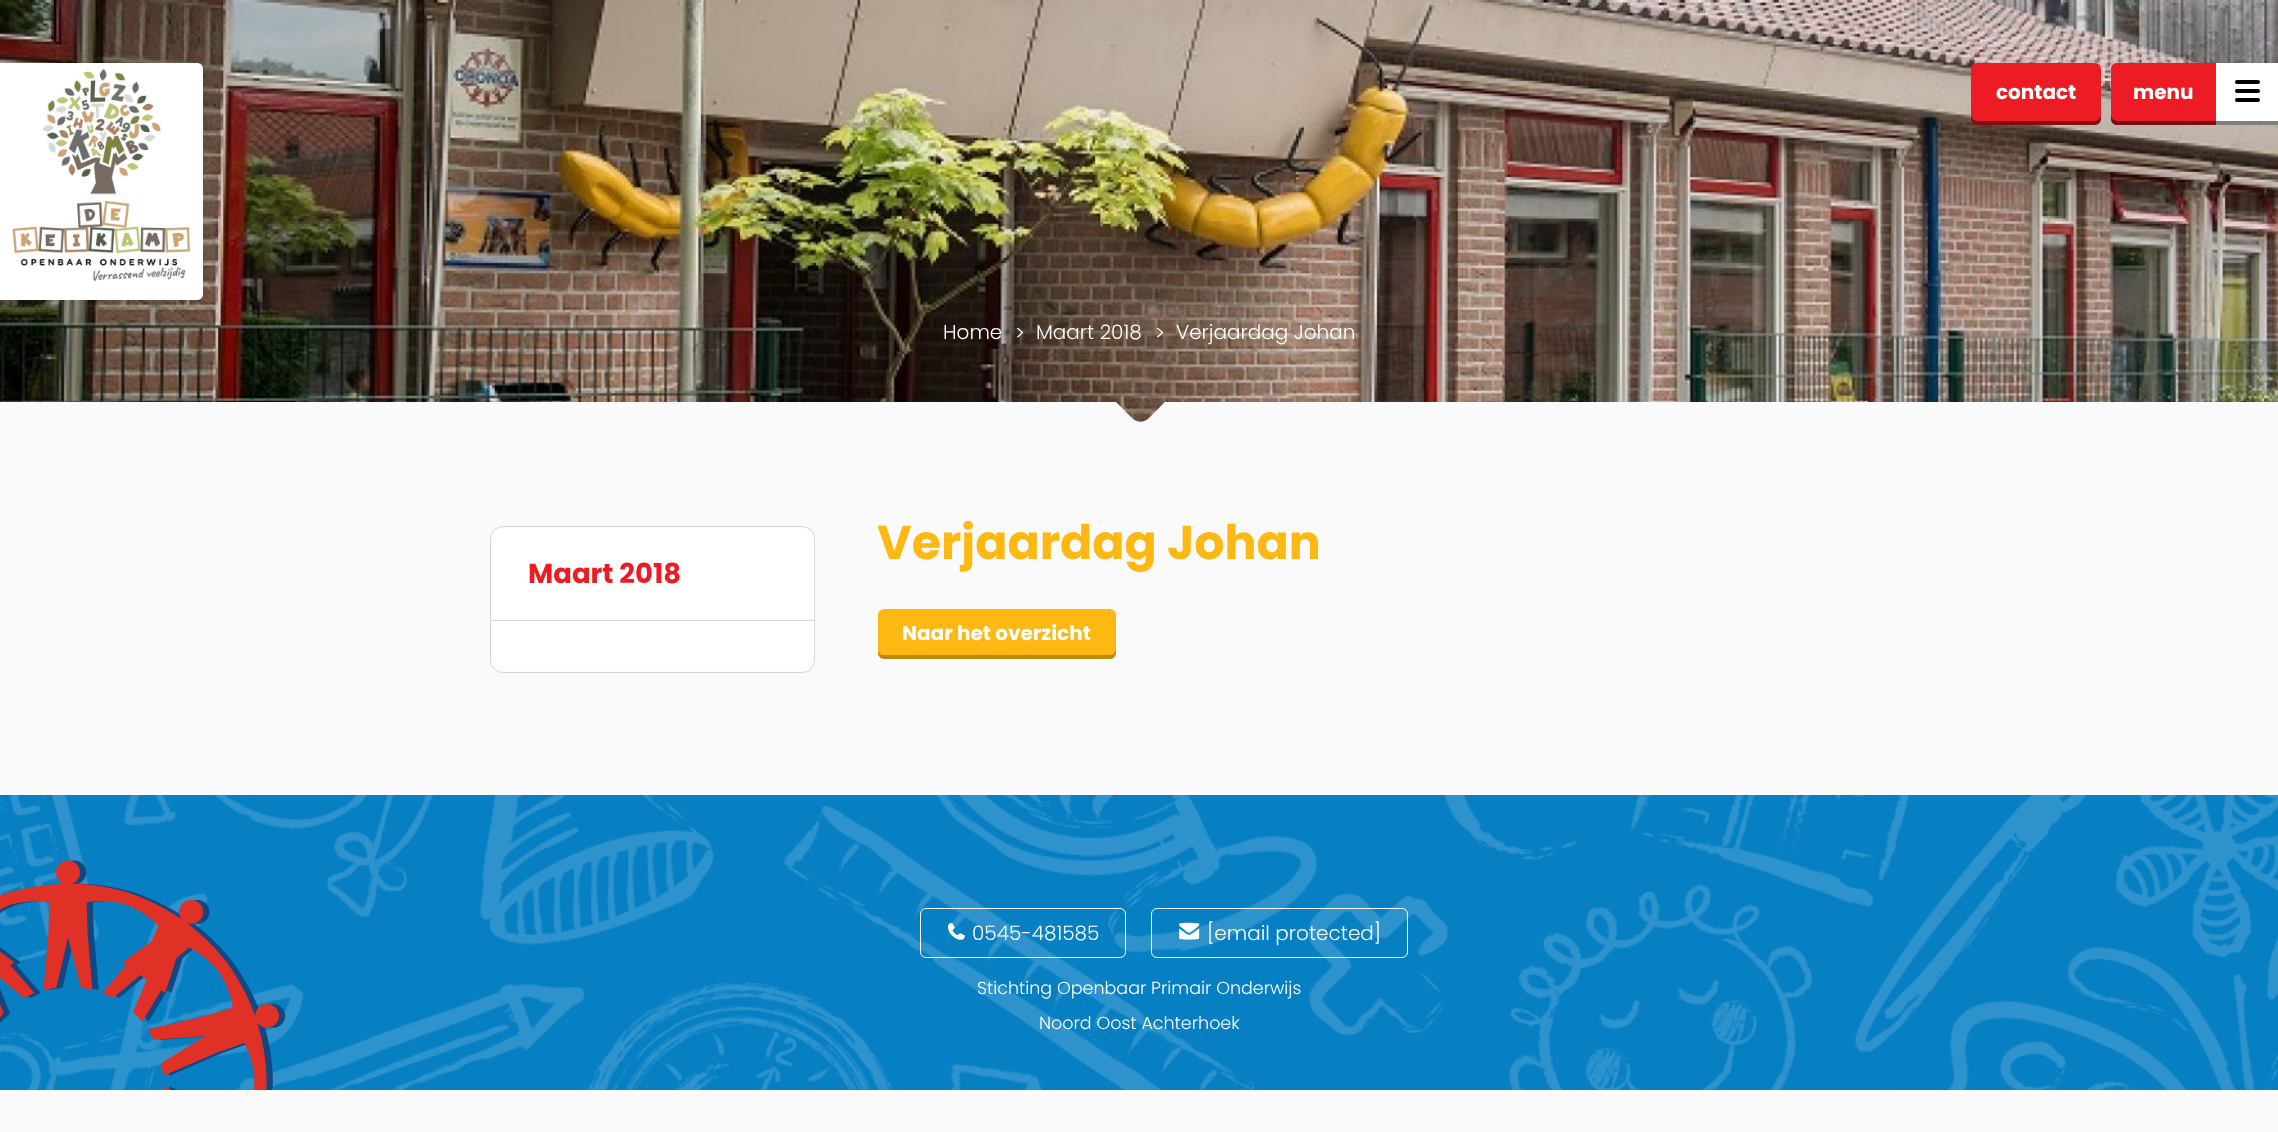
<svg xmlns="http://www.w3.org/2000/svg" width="2278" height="1132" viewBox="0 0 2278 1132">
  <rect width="100%" height="100%" fill="#fafafa"/>
  <image x="0" y="0" width="2278" height="422" href="img/1.png"/>
  <path d="M0 63H197C200.5 63 203 65.5 203 69V294C203 297.5 200.5 300 197 300H0Z" fill="#fff"/>
  <image x="12" y="68" width="178" height="214" href="img/2.png"/>
  <rect x="1971" y="63" width="130" height="62" rx="6" fill="#ed1b24"/>
  <path d="M1971 115V119C1971 122 1974 125 1977 125H2095C2098 125 2101 122 2101 119V115C2101 118 2098 121 2095 121H1978C1974 121 1971 118 1971 115Z" fill="#00000073"/>
  <path d="M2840 402V445H-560V402H1116L1132 418C1137 423 1144 423 1149 418L1165 402Z" fill="#fafafa"/>
  <rect x="491" y="528" width="323" height="143" rx="11" fill="#fff"/>
  <rect x="490.5" y="526.5" width="324" height="146" rx="12.5" fill="none" stroke="#d7d7d7"/>
  <path d="M491 620h323v1H491z" fill="#d7d7d7"/>
  <rect x="878" y="609" width="238" height="50" rx="6" fill="#fdb813"/>
  <path d="M878 649V653C878 656 881 659 884 659H1110C1113 659 1116 656 1116 653V649C1116 652 1113 655 1110 655H884C880 655 878 652 878 649Z" fill="#00000040"/>
  <path d="M2117 63H2216V125H2117C2113.5 125 2111 122.5 2111 119V69C2111 65.5 2113.5 63 2117 63Z" fill="#ed1b24"/>
  <path d="M2111 115V119C2111 122 2114 125 2117 125H2216V121H2118C2114 121 2111 118 2111 115Z" fill="#00000080"/>
  <path d="M2216 63h62v58H2216z" fill="#fff"/>
  <path d="M2216 121h62v4H2216z" fill="#808080"/>
  <rect x="2235" y="89" width="25" height="4" rx="2" fill="#000"/>
  <rect x="2235" y="80" width="25" height="4" rx="2" fill="#000"/>
  <rect x="2235" y="98" width="25" height="4" rx="2" fill="#000"/>
  <path d="M0 795h2278v295H0z" fill="#007cc2"/>
  <image x="0" y="795" width="2278" height="295" href="img/3.png"/>
  <image x="0" y="860" width="286" height="230" href="img/4.png"/>
  <image x="0" y="860" width="279" height="230" href="img/5.png"/>
  <rect x="920.5" y="908.5" width="205" height="49" rx="5.5" fill="none" stroke="#fff"/>
  <image x="947" y="922" width="18" height="18" href="img/6.png"/>
  <rect x="1151.5" y="908.5" width="256" height="49" rx="5.5" fill="none" stroke="#fff"/>
  <image x="1179" y="922" width="21" height="18" href="img/7.png"/>
  <text x="1996" y="99" font-family="Poppins" font-size="20" font-weight="bold" fill="#fff">contact</text>
  <g font-family="Poppins" font-size="20" font-weight="300" fill="#fff">
    <text x="943" y="339">Home</text>
    <text x="1015" y="340">&gt;</text>
    <text x="1036" y="339">Maart 2018</text>
    <text x="1155" y="340">&gt;</text>
    <text x="1176" y="339">Verjaardag Johan</text>
  </g>
  <text x="528" y="583" font-family="Poppins" font-size="27.5" font-weight="bold" fill="#ed1b24">Maart 2018</text>
  <text x="877" y="559" font-family="Poppins" font-size="47.5" font-weight="bold" fill="#fdb813">Verjaardag Johan</text>
  <g font-family="Poppins" font-size="20" font-weight="bold" fill="#fff">
    <text x="902" y="640">Naar het overzicht</text>
    <text x="2133" y="99">menu</text>
  </g>
  <g font-family="Poppins" font-size="20" font-weight="300" fill="#fff">
    <text x="972" y="940">0545-481585</text>
    <text x="1207" y="940">[email protected]</text>
  </g>
  <g font-family="Poppins" font-size="17.5" font-weight="300" fill="#fff">
    <text x="977" y="994">Stichting Openbaar Primair Onderwijs</text>
    <text x="1039" y="1029">Noord Oost Achterhoek</text>
  </g>
</svg>
